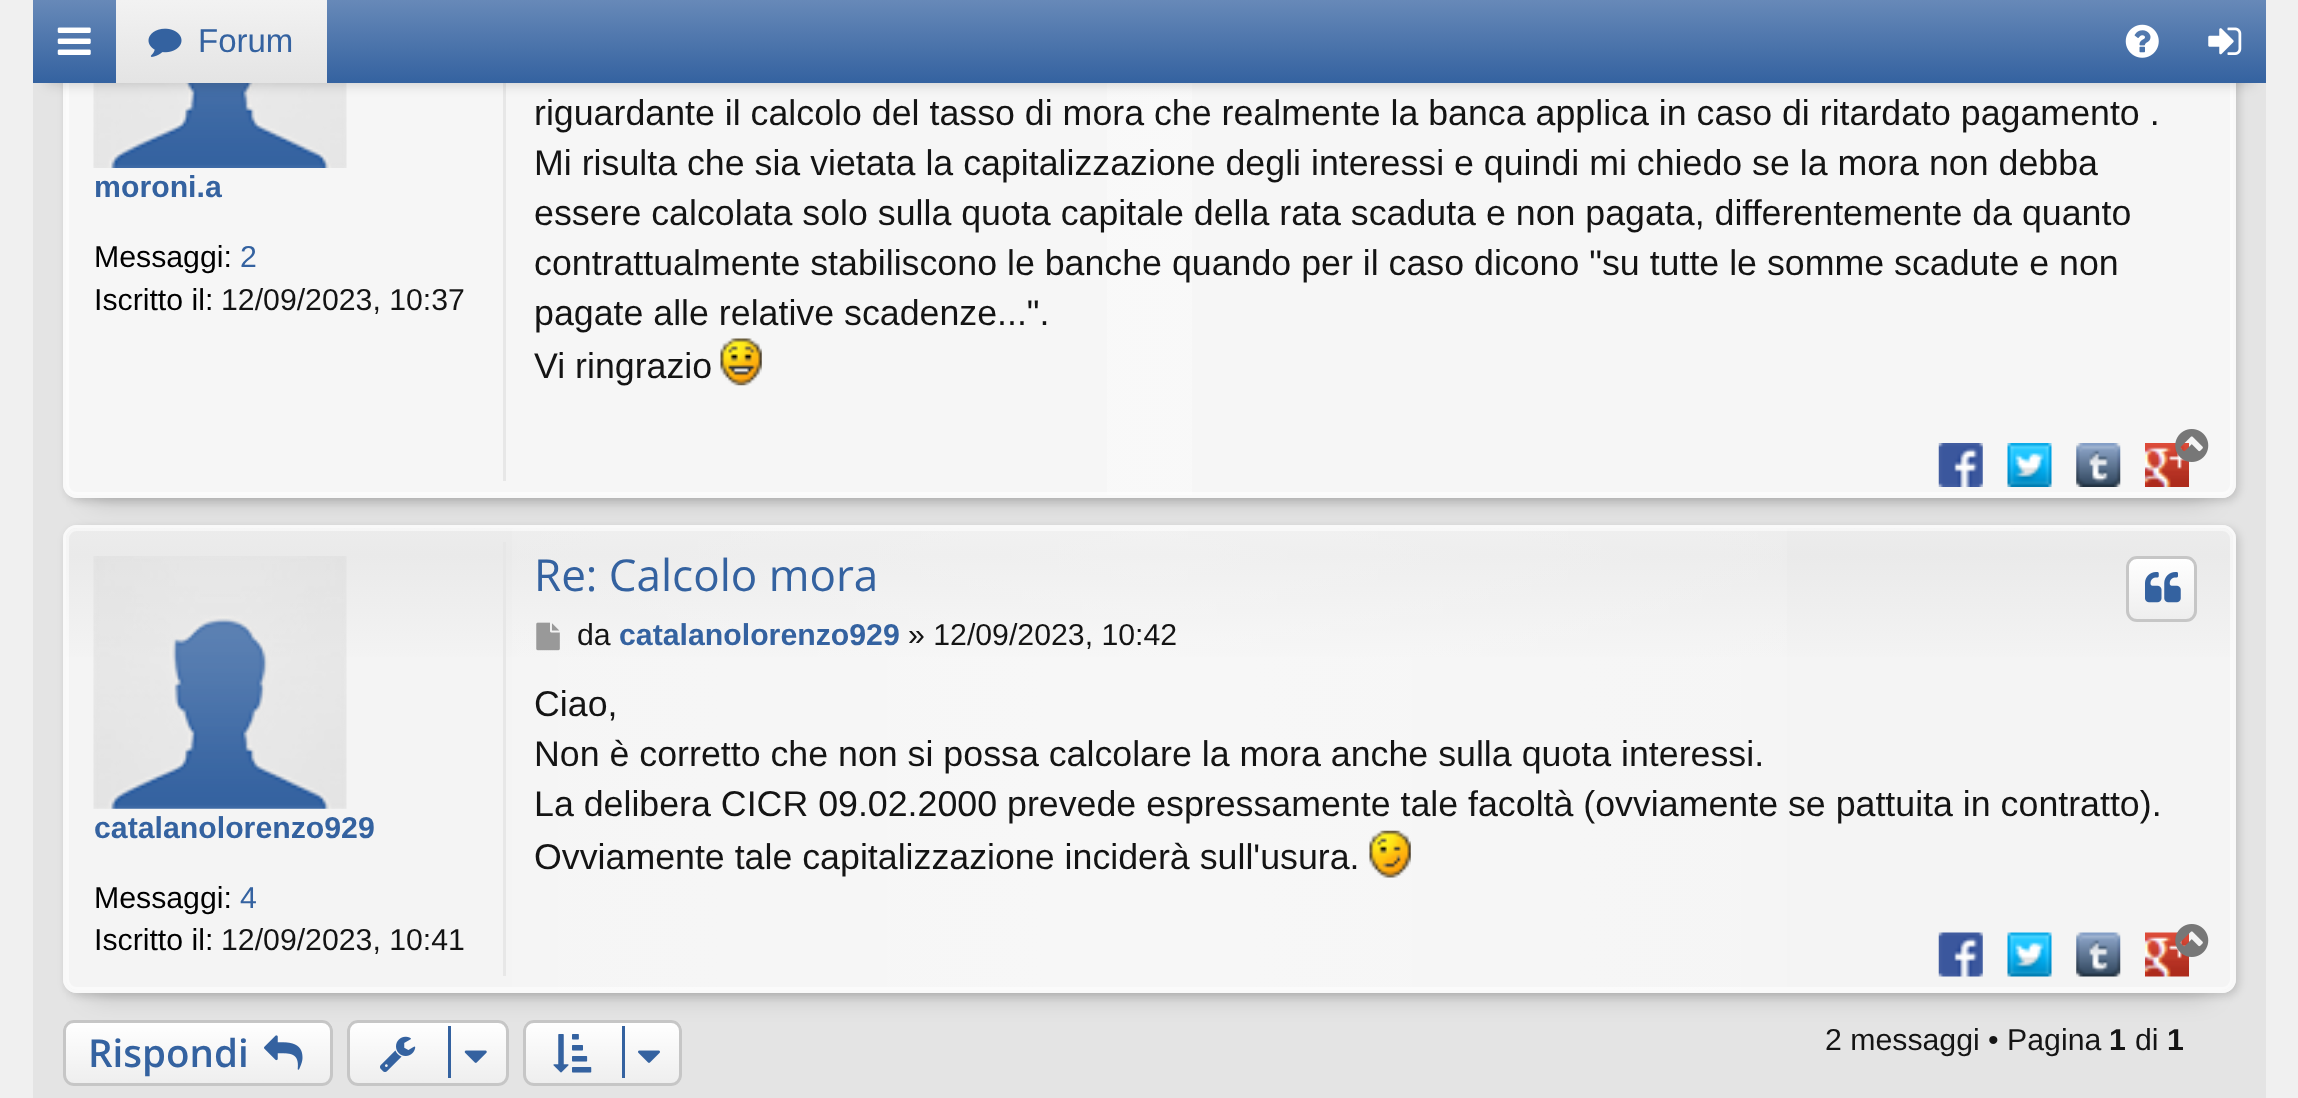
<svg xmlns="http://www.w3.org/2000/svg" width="2298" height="1098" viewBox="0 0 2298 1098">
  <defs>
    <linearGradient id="g1" gradientUnits="userSpaceOnUse" x1="66" y1="191" x2="2233" y2="191"><stop offset="0" stop-color="#fff" stop-opacity="0"/><stop offset="0.5" stop-color="#fff" stop-opacity="0.3"/><stop offset="1" stop-color="#fff" stop-opacity="0"/></linearGradient>
    <linearGradient id="g2" gradientUnits="userSpaceOnUse" x1="1150" y1="0" x2="1150" y2="83"><stop offset="0" stop-color="#6789b8"/><stop offset="1" stop-color="#3462a0"/></linearGradient>
    <linearGradient id="g3" gradientUnits="userSpaceOnUse" x1="221" y1="0" x2="221" y2="83"><stop offset="0" stop-color="#f2f2f2"/><stop offset="1" stop-color="#e4e4e4"/></linearGradient>
    <clipPath id="clip1"><rect x="63" y="1020" width="270" height="66" rx="11"/></clipPath>
    <linearGradient id="g4" gradientUnits="userSpaceOnUse" x1="198" y1="1023" x2="198" y2="1084"><stop offset="0" stop-color="#fff"/><stop offset="1" stop-color="#fff" stop-opacity="0"/></linearGradient>
    <clipPath id="clip2"><rect x="63" y="525" width="2173" height="468" rx="14"/></clipPath>
    <linearGradient id="g5" gradientUnits="userSpaceOnUse" x1="1150" y1="528" x2="1150" y2="990"><stop offset="0" stop-color="#ccc" stop-opacity="0.2"/><stop offset="0.06" stop-color="#ccc" stop-opacity="0.25"/><stop offset="0.3" stop-color="#ccc" stop-opacity="0"/></linearGradient>
    <linearGradient id="g6" gradientUnits="userSpaceOnUse" x1="66" y1="759" x2="2233" y2="759"><stop offset="0" stop-color="#fff" stop-opacity="0"/><stop offset="0.5" stop-color="#fff" stop-opacity="0.3"/><stop offset="1" stop-color="#fff" stop-opacity="0"/></linearGradient>
    <clipPath id="clip3"><rect x="2126" y="556" width="71" height="66" rx="11"/></clipPath>
    <linearGradient id="g7" gradientUnits="userSpaceOnUse" x1="2162" y1="558" x2="2162" y2="619"><stop offset="0" stop-color="#fff"/><stop offset="1" stop-color="#eee"/></linearGradient>
    <clipPath id="clip4"><rect x="347" y="1020" width="162" height="66" rx="11"/></clipPath>
    <linearGradient id="g8" gradientUnits="userSpaceOnUse" x1="428" y1="1023" x2="428" y2="1084"><stop offset="0" stop-color="#fff"/><stop offset="1" stop-color="#fff" stop-opacity="0"/></linearGradient>
    <clipPath id="clip5"><rect x="523" y="1020" width="159" height="66" rx="11"/></clipPath>
    <linearGradient id="g9" gradientUnits="userSpaceOnUse" x1="602" y1="1023" x2="602" y2="1084"><stop offset="0" stop-color="#fff"/><stop offset="1" stop-color="#fff" stop-opacity="0"/></linearGradient>
  </defs>
  <rect width="100%" height="100%" fill="#f0f0f0"/>
  <path d="M33 83h2233v1015H33z" fill="#e4e4e4"/>
  <path d="M91 -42h2117v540H91z" fill="#00000033" filter="blur(14px)"/>
  <rect x="66" y="-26" width="2173" height="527" rx="14" fill="#00000026" filter="blur(4px)"/>
  <rect x="63" y="-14" width="2173" height="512" rx="14" fill="#f6f6f6"/>
  <path d="M1107 83h85v412H1107z" fill="url(#g1)"/>
  <rect x="67.5" y="-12.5" width="2164" height="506" rx="9.5" fill="none" stroke="#ffffff80" stroke-width="3"/>
  <rect x="64.5" y="-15.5" width="2170" height="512" rx="12.5" fill="none" stroke="#f9f9f9" stroke-width="3"/>
  <path d="M503 83h3v398H503z" fill="#e7e7e7"/>
  <image x="93" y="83" width="254" height="85" href="img/5.png"/>
  <path d="M47 28h2205v55H47z" fill="#00000033" filter="blur(7px)"/>
  <path d="M33 0h2233v83H33z" fill="url(#g2)"/>
  <image x="57" y="27" width="34" height="28" href="img/1.png"/>
  <path d="M116 0h211v83H116z" fill="url(#g3)"/>
  <image x="148" y="28" width="34" height="29" href="img/2.png"/>
  <image x="2125" y="24" width="34" height="34" href="img/3.png"/>
  <image x="2208" y="27" width="34" height="28" href="img/4.png"/>
  <image x="720" y="338" width="42" height="48" href="img/6.png"/>
  <image x="1938" y="443" width="45" height="44" href="img/7.png"/>
  <image x="2007" y="443" width="45" height="44" href="img/8.png"/>
  <image x="2076" y="443" width="45" height="44" href="img/9.png"/>
  <image x="2145" y="443" width="44" height="44" href="img/10.png"/>
  <image x="2175" y="429" width="34" height="33" href="img/11.png"/>
  <rect x="63" y="1020" width="270" height="66" rx="11" fill="#eee"/>
  <g clip-path="url(#clip1)">
    <path d="M63 1023h270v60H63z" fill="url(#g4)"/>
  </g>
  <rect x="64.5" y="1021.5" width="267" height="63" rx="9.5" fill="none" stroke="#c6c6c6" stroke-width="3"/>
  <image x="264" y="1035" width="39" height="35" href="img/21.png"/>
  <path d="M91 580h2117v413H91z" fill="#00000033" filter="blur(14px)"/>
  <rect x="66" y="528" width="2173" height="468" rx="14" fill="#00000026" filter="blur(4px)"/>
  <rect x="63" y="525" width="2173" height="468" rx="14" fill="#f4f4f4"/>
  <g clip-path="url(#clip2)">
    <path d="M63 528h2173v129H63z" fill="url(#g5)"/>
  </g>
  <path d="M512 528h1275v462H512z" fill="url(#g6)"/>
  <rect x="67.5" y="529.5" width="2164" height="459" rx="9.5" fill="none" stroke="#ffffff80" stroke-width="3"/>
  <rect x="64.5" y="526.5" width="2170" height="465" rx="12.5" fill="none" stroke="#f9f9f9" stroke-width="3"/>
  <path d="M503 542h3v434H503z" fill="#e7e7e7"/>
  <image x="93" y="556" width="254" height="253" href="img/12.png"/>
  <g clip-path="url(#clip3)">
    <path d="M2126 558h71v61H2126z" fill="url(#g7)"/>
  </g>
  <rect x="2127.5" y="557.5" width="68" height="63" rx="9.5" fill="none" stroke="#c6c6c6" stroke-width="3"/>
  <image x="2145" y="572" width="36" height="31" href="img/13.png"/>
  <image x="536" y="622" width="24" height="29" href="img/14.png"/>
  <image x="1369" y="830" width="42" height="48" href="img/15.png"/>
  <image x="1938" y="932" width="45" height="45" href="img/16.png"/>
  <image x="2007" y="932" width="45" height="45" href="img/17.png"/>
  <image x="2076" y="932" width="45" height="45" href="img/18.png"/>
  <image x="2145" y="932" width="44" height="45" href="img/19.png"/>
  <image x="2175" y="924" width="34" height="33" href="img/20.png"/>
  <rect x="347" y="1020" width="162" height="66" rx="11" fill="#eee"/>
  <g clip-path="url(#clip4)">
    <path d="M347 1023h162v60H347z" fill="url(#g8)"/>
  </g>
  <rect x="348.5" y="1021.5" width="159" height="63" rx="9.5" fill="none" stroke="#c6c6c6" stroke-width="3"/>
  <image x="380" y="1036" width="36" height="36" href="img/22.png"/>
  <path d="M448 1026h3v52H448z" fill="#3462a0"/>
  <image x="464" y="1050" width="23" height="13" href="img/23.png"/>
  <rect x="523" y="1020" width="159" height="66" rx="11" fill="#eee"/>
  <g clip-path="url(#clip5)">
    <path d="M523 1023h159v60H523z" fill="url(#g9)"/>
  </g>
  <rect x="524.5" y="1021.5" width="156" height="63" rx="9.5" fill="none" stroke="#c6c6c6" stroke-width="3"/>
  <image x="553" y="1034" width="39" height="39" href="img/24.png"/>
  <path d="M622 1026h3v52H622z" fill="#3462a0"/>
  <image x="638" y="1050" width="22" height="13" href="img/25.png"/>
  <text x="198" y="52" font-family="Liberation Sans" font-size="33" fill="#3462a0">Forum</text>
  <text x="94" y="197" font-family="Liberation Sans" font-size="30.25" font-weight="bold" fill="#3462a0">moroni.a</text>
  <text x="94" y="267" font-family="Liberation Sans" font-size="30.25" fill="#000">Messaggi:</text>
  <text x="240" y="267" font-family="Liberation Sans" font-size="30.25" fill="#3462a0">2</text>
  <text x="94" y="310" font-family="Liberation Sans" font-size="30.25" fill="#000">Iscritto il:</text>
  <text x="221" y="310" font-family="Liberation Sans" font-size="30.25" fill="#141414">12/09/2023, 10:37</text>
  <g font-family="Liberation Sans" font-size="35.75" fill="#141414">
    <text x="534" y="125">riguardante il calcolo del tasso di mora che realmente la banca applica in caso di ritardato pagamento .</text>
    <text x="534" y="175">Mi risulta che sia vietata la capitalizzazione degli interessi e quindi mi chiedo se la mora non debba</text>
    <text x="534" y="225">essere calcolata solo sulla quota capitale della rata scaduta e non pagata, differentemente da quanto</text>
    <text x="534" y="275">contrattualmente stabiliscono le banche quando per il caso dicono "su tutte le somme scadute e non</text>
    <text x="534" y="325">pagate alle relative scadenze...".</text>
    <text x="534" y="378">Vi ringrazio</text>
  </g>
  <text x="94" y="838" font-family="Liberation Sans" font-size="30.25" font-weight="bold" fill="#3462a0">catalanolorenzo929</text>
  <text x="94" y="908" font-family="Liberation Sans" font-size="30.25" fill="#000">Messaggi:</text>
  <text x="240" y="908" font-family="Liberation Sans" font-size="30.25" fill="#3462a0">4</text>
  <text x="94" y="950" font-family="Liberation Sans" font-size="30.25" fill="#000">Iscritto il:</text>
  <text x="221" y="950" font-family="Liberation Sans" font-size="30.25" fill="#141414">12/09/2023, 10:41</text>
  <text x="534" y="591" font-family="Open Sans" font-size="44" fill="#3462a0">Re: Calcolo mora</text>
  <text x="577" y="645" font-family="Liberation Sans" font-size="30.25" fill="#141414">da</text>
  <text x="619" y="645" font-family="Liberation Sans" font-size="30.25" font-weight="bold" fill="#3462a0">catalanolorenzo929</text>
  <text x="908" y="645" font-family="Liberation Sans" font-size="30.25" fill="#141414">» 12/09/2023, 10:42</text>
  <g font-family="Liberation Sans" font-size="35.75" fill="#141414">
    <text x="534" y="716">Ciao,</text>
    <text x="534" y="766">Non è corretto che non si possa calcolare la mora anche sulla quota interessi.</text>
    <text x="534" y="816">La delibera CICR 09.02.2000 prevede espressamente tale facoltà (ovviamente se pattuita in contratto).</text>
    <text x="534" y="869">Ovviamente tale capitalizzazione inciderà sull'usura.</text>
  </g>
  <text x="88" y="1067" font-family="Open Sans" font-size="38.5" font-weight="600" fill="#3462a0">Rispondi</text>
  <text x="1825" y="1050" font-family="Liberation Sans" font-size="30.25" fill="#141414">2 messaggi • Pagina</text>
  <text x="2109" y="1050" font-family="Liberation Sans" font-size="30.25" font-weight="bold" fill="#141414">1</text>
  <text x="2135" y="1050" font-family="Liberation Sans" font-size="30.25" fill="#141414">di</text>
  <text x="2167" y="1050" font-family="Liberation Sans" font-size="30.25" font-weight="bold" fill="#141414">1</text>
</svg>
